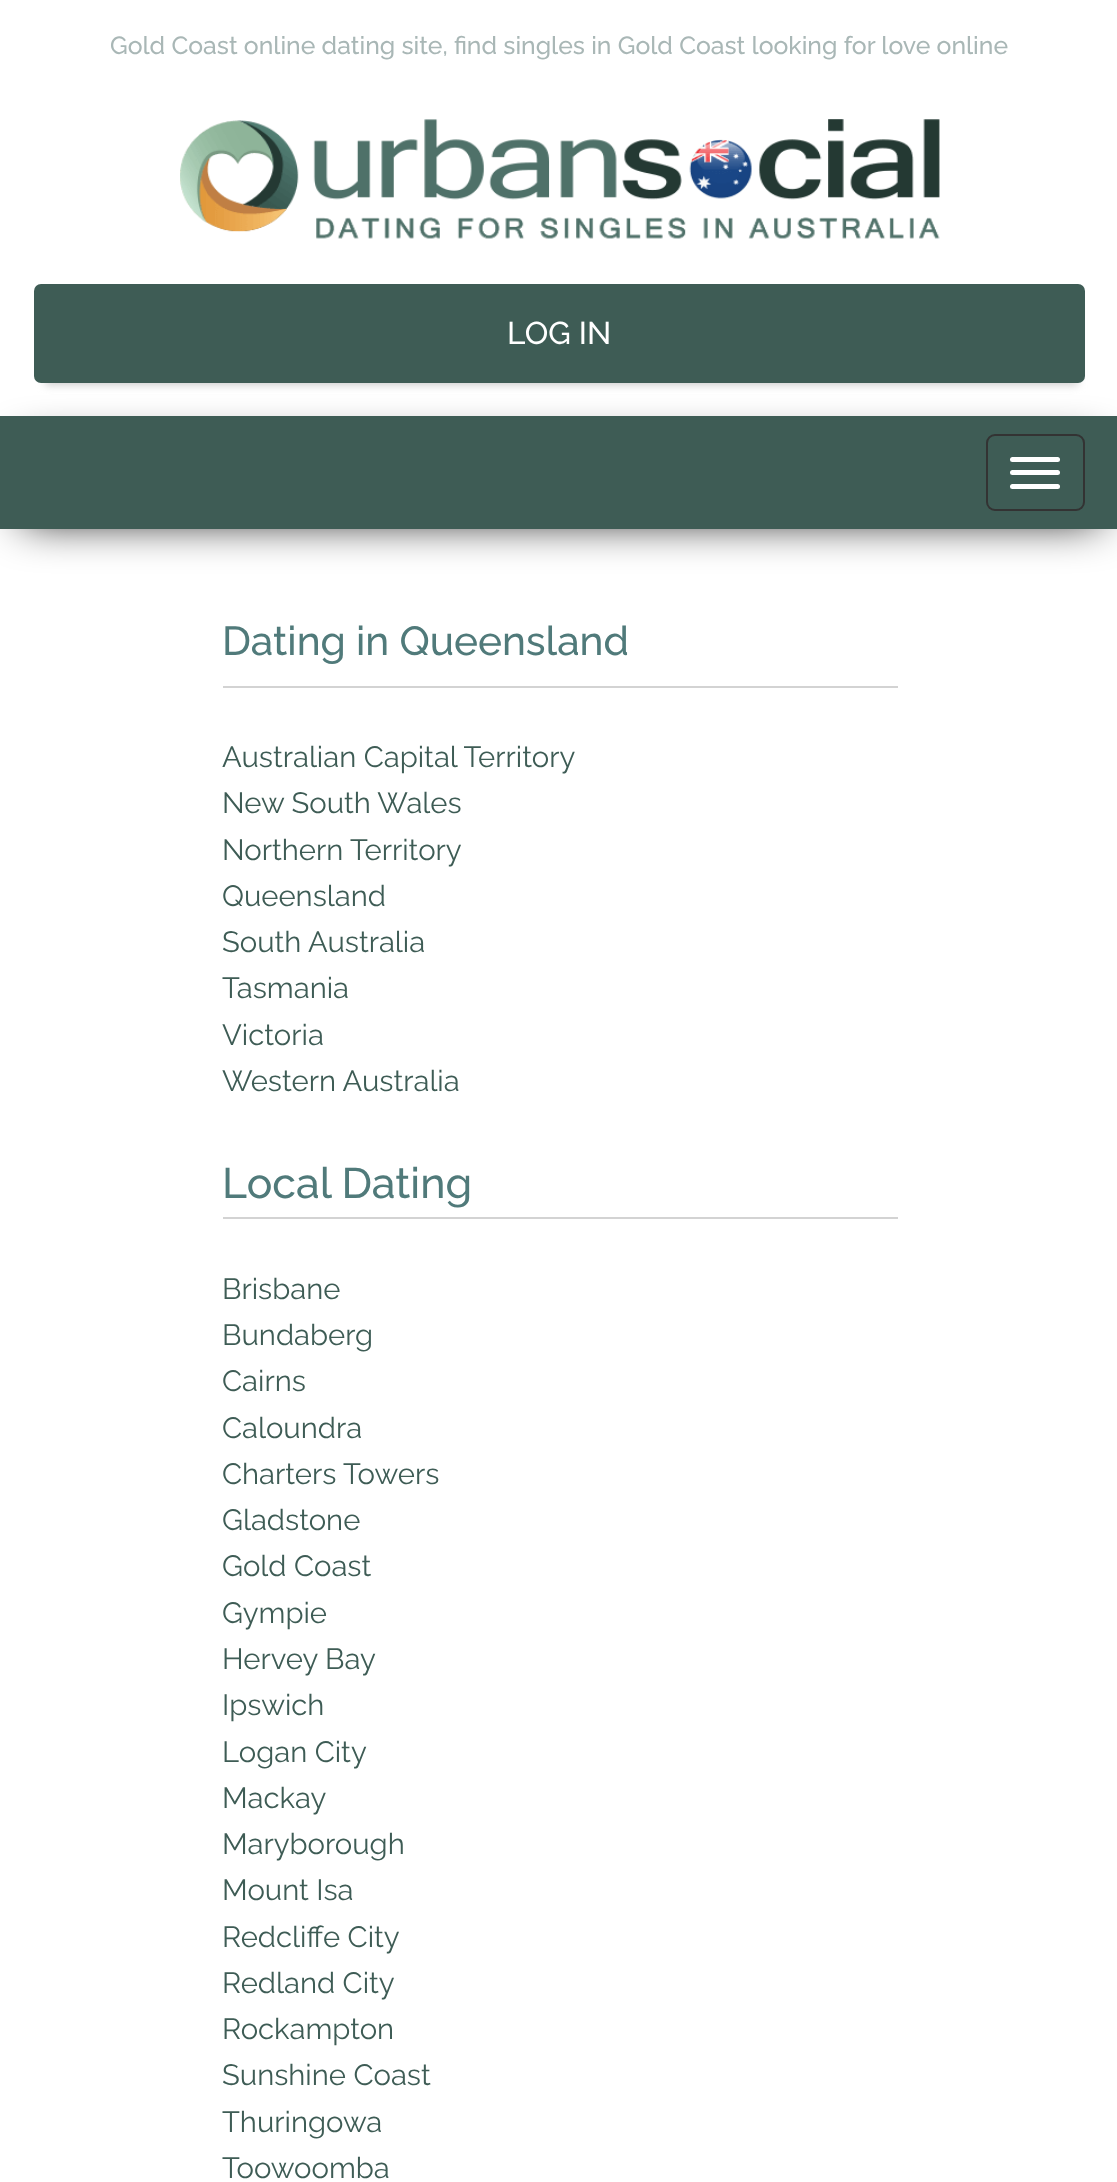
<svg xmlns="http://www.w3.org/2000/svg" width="1117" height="2182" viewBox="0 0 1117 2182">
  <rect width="100%" height="100%" fill="#fff"/>
  <image x="180" y="119" width="760" height="120" href="img/1.png"/>
  <path d="M45 304h1033v81H45z" fill="#ccc" filter="blur(4.5px)"/>
  <rect x="34" y="284" width="1051" height="99" rx="7" fill="#3e5c55"/>
  <path d="M23 448h1077v72H23z" fill="#000" filter="blur(22.5px)"/>
  <path d="M0 416h1117v113H0z" fill="#3e5c55"/>
  <rect x="987" y="435" width="97" height="75" rx="8" fill="none" stroke="#333" stroke-width="2"/>
  <rect x="1010" y="457" width="50" height="5" rx="2.5" fill="#fff"/>
  <rect x="1010" y="470" width="50" height="5" rx="2.5" fill="#fff"/>
  <rect x="1010" y="484" width="50" height="5" rx="2.5" fill="#fff"/>
  <path d="M223 686h675v2H223z" fill="#d3d3d3"/>
  <path d="M223 1217h675v2H223z" fill="#d3d3d3"/>
  <text x="110" y="54" font-family="Raleway" font-size="24.75" font-weight="500" fill="#a9b7b6">Gold Coast online dating site, find singles in Gold Coast looking for love online</text>
  <text x="507" y="344" font-family="Raleway" font-size="31.5" font-weight="500" fill="#fff">LOG IN</text>
  <text x="222" y="655" font-family="Raleway" font-size="40.5" font-weight="500" fill="#507a7a">Dating in Queensland</text>
  <g font-family="Raleway" font-size="29.25" fill="#3e5c55">
    <text x="222" y="767">Australian Capital Territory</text>
    <text x="222" y="813">New South Wales</text>
    <text x="222" y="860">Northern Territory</text>
    <text x="222" y="906">Queensland</text>
    <text x="222" y="952">South Australia</text>
    <text x="222" y="998">Tasmania</text>
    <text x="222" y="1045">Victoria</text>
    <text x="222" y="1091">Western Australia</text>
  </g>
  <text x="222" y="1198" font-family="Raleway" font-size="42.75" font-weight="500" fill="#507a7a">Local Dating</text>
  <g font-family="Raleway" font-size="29.25" fill="#3e5c55">
    <text x="222" y="1299">Brisbane</text>
    <text x="222" y="1345">Bundaberg</text>
    <text x="222" y="1391">Cairns</text>
    <text x="222" y="1438">Caloundra</text>
    <text x="222" y="1484">Charters Towers</text>
    <text x="222" y="1530">Gladstone</text>
    <text x="222" y="1576">Gold Coast</text>
    <text x="222" y="1623">Gympie</text>
    <text x="222" y="1669">Hervey Bay</text>
    <text x="222" y="1715">Ipswich</text>
    <text x="222" y="1762">Logan City</text>
    <text x="222" y="1808">Mackay</text>
    <text x="222" y="1854">Maryborough</text>
    <text x="222" y="1900">Mount Isa</text>
    <text x="222" y="1947">Redcliffe City</text>
    <text x="222" y="1993">Redland City</text>
    <text x="222" y="2039">Rockampton</text>
    <text x="222" y="2085">Sunshine Coast</text>
    <text x="222" y="2132">Thuringowa</text>
    <text x="222" y="2178">Toowoomba</text>
  </g>
</svg>
